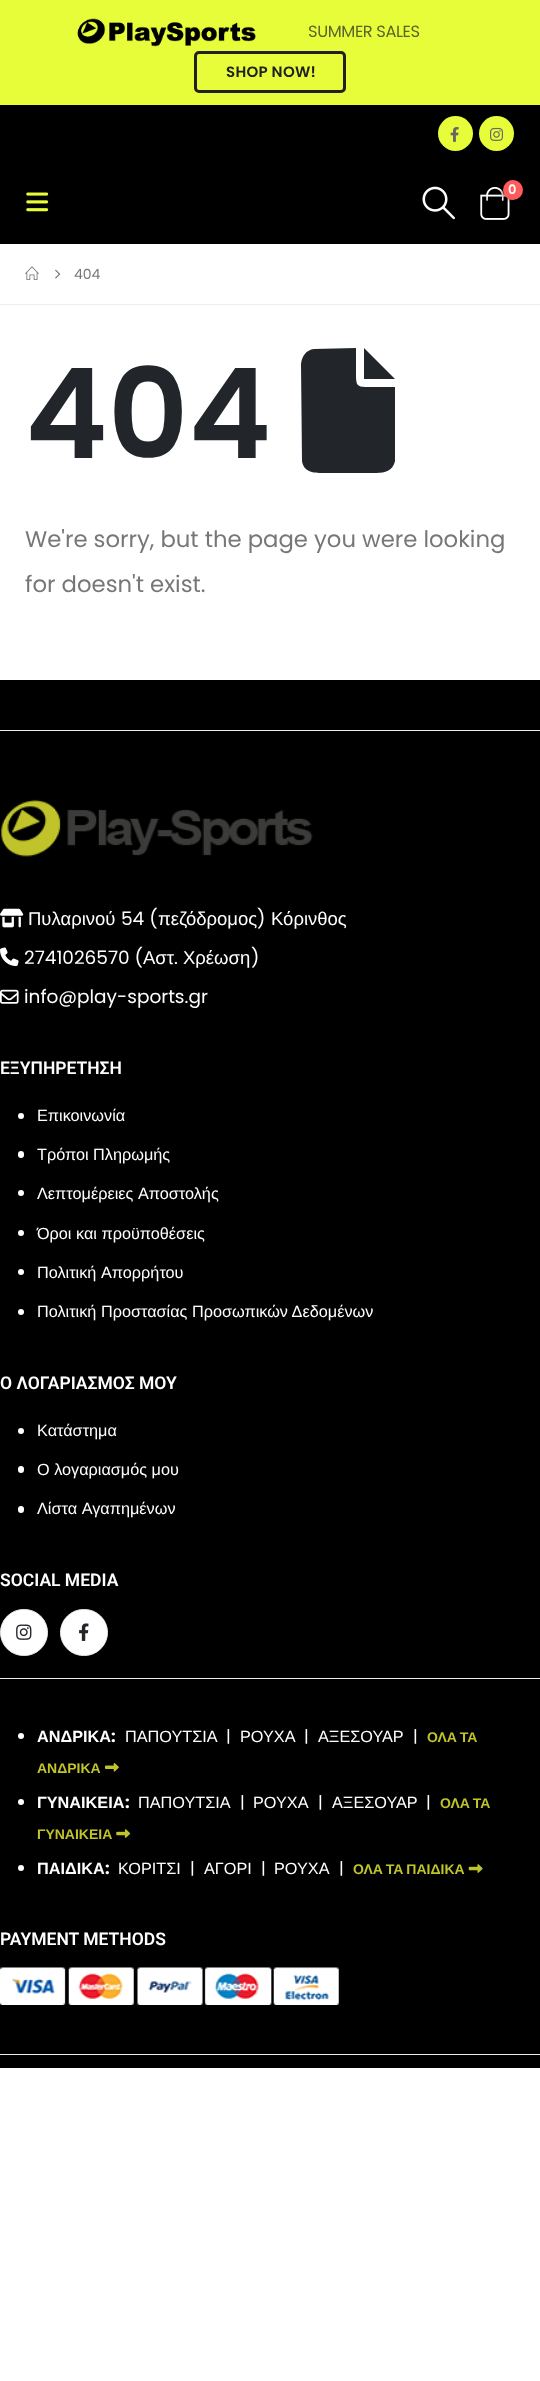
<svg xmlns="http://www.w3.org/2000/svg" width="540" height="2381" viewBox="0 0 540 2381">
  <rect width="100%" height="100%" fill="#fff"/>
  <path d="M0 0h540v105H0z" fill="#e7fd3a"/>
  <image x="77" y="18" width="179" height="29" href="img/1.png"/>
  <rect x="195.5" y="52.5" width="149" height="39" rx="3.5" fill="none" stroke="#212121" stroke-width="3"/>
  <path d="M0 105h540v139H0z" fill="#000"/>
  <circle cx="455.5" cy="133.5" r="17.5" fill="#e7fd3a"/>
  <image x="450" y="127" width="9" height="15" href="img/2.png"/>
  <circle cx="496.5" cy="133.5" r="17.5" fill="#e7fd3a"/>
  <image x="490" y="127" width="13" height="14" href="img/3.png"/>
  <image x="422" y="186" width="33" height="34" href="img/4.png"/>
  <image x="480" y="186" width="30" height="34" href="img/5.png"/>
  <rect x="501" y="181" width="20" height="20" rx="10" fill="#0000004d" filter="blur(1px)"/>
  <circle cx="513" cy="190" r="10" fill="#ff5b5b"/>
  <image x="26" y="192" width="23" height="20" href="img/6.png"/>
  <path d="M0 304h540v1H0z" fill="#eee"/>
  <image x="25" y="266" width="14" height="14" href="img/7.png"/>
  <image x="55" y="269" width="6" height="10" href="img/8.png"/>
  <path d="M301 364C302 356 306 350 314 349L356 348V374C356 386 357 387 369 387H395V461C392 474 380 473 369 473H327C317 473 304 474 302 461ZM395 379H364V348Z" fill="#222529"/>
  <path d="M0 680h540v1388H0z" fill="#000"/>
  <path d="M0 730h540v1H0z" fill="#eee"/>
  <image x="1" y="799" width="312" height="58" href="img/9.png"/>
  <image x="0" y="908" width="24" height="20" href="img/10.png"/>
  <image x="0" y="947" width="19" height="20" href="img/11.png"/>
  <image x="0" y="989" width="19" height="15" href="img/12.png"/>
  <circle cx="21" cy="1116" r="3" fill="#fff"/>
  <rect x="18" y="1151" width="6" height="7" rx="3" fill="#fff"/>
  <circle cx="21" cy="1193" r="3" fill="#fff"/>
  <circle cx="21" cy="1233" r="3" fill="#fff"/>
  <circle cx="21" cy="1272" r="3" fill="#fff"/>
  <circle cx="21" cy="1312" r="3" fill="#fff"/>
  <circle cx="21" cy="1431" r="3" fill="#fff"/>
  <rect x="18" y="1466" width="6" height="7" rx="3" fill="#fff"/>
  <rect x="18" y="1506" width="6" height="7" rx="3" fill="#fff"/>
  <rect x="0.5" y="1609.5" width="47" height="46" rx="23" fill="#fff" stroke="#eee"/>
  <image x="16" y="1624" width="16" height="16" href="img/13.png"/>
  <rect x="60.5" y="1609.5" width="47" height="46" rx="23" fill="#fff" stroke="#eee"/>
  <image x="79" y="1623" width="10" height="18" href="img/14.png"/>
  <path d="M0 1678h540v1H0z" fill="#eee"/>
  <circle cx="21" cy="1736" r="3" fill="#fff"/>
  <image x="105" y="1763" width="14" height="9" href="img/15.png"/>
  <circle cx="21" cy="1802" r="3" fill="#fff"/>
  <image x="116" y="1829" width="15" height="9" href="img/16.png"/>
  <circle cx="21" cy="1868" r="3" fill="#fff"/>
  <image x="468" y="1864" width="15" height="9" href="img/17.png"/>
  <image x="0" y="1967" width="339" height="38" href="img/18.png"/>
  <path d="M0 2054h540v1H0z" fill="#eee"/>
  <text x="308" y="37" font-family="Poppins" font-size="16.25" letter-spacing="-0.4" fill="#5c6329">SUMMER SALES</text>
  <text x="226" y="77" font-family="Poppins" font-size="15" font-weight="600" letter-spacing="0.25" fill="#212121">SHOP NOW!</text>
  <text x="508" y="194" font-family="Poppins" font-size="13" font-weight="600" fill="#fff">0</text>
  <text x="74" y="279" font-family="Poppins" font-size="14" fill="#777">404</text>
  <text x="25" y="458" font-family="Poppins" font-size="125" font-weight="600" fill="#222529">404</text>
  <g font-family="Poppins" font-size="22.75" fill="#777">
    <text x="25" y="547">We're sorry, but the page you were looking</text>
    <text x="25" y="592">for doesn't exist.</text>
  </g>
  <text x="28" y="925" font-family="Liberation Sans" font-size="18.5" fill="#fff">Πυλαρινού</text>
  <text x="121" y="925" font-family="Poppins" font-size="18.5" fill="#fff">54 (</text>
  <text x="158" y="925" font-family="Liberation Sans" font-size="18.5" fill="#fff">πεζόδρομος</text>
  <text x="257" y="925" font-family="Poppins" font-size="18.5" fill="#fff">)</text>
  <text x="271" y="925" font-family="Liberation Sans" font-size="18.5" fill="#fff">Κόρινθος</text>
  <text x="24" y="964" font-family="Poppins" font-size="18.5" fill="#fff">2741026570 (</text>
  <text x="143" y="964" font-family="Liberation Sans" font-size="18.5" fill="#fff">Αστ</text>
  <text x="174" y="964" font-family="Poppins" font-size="18.5" fill="#fff">.</text>
  <text x="183" y="964" font-family="Liberation Sans" font-size="18.5" fill="#fff">Χρέωση</text>
  <g font-family="Poppins" font-size="18.5" fill="#fff">
    <text x="251" y="964">)</text>
    <text x="24" y="1003">info@play-sports.gr</text>
  </g>
  <text x="0" y="1074" font-family="Roboto" font-size="17.5" font-weight="600" fill="#fff">ΕΞΥΠΗΡΕΤΗΣΗ</text>
  <g font-family="Liberation Sans" font-size="16.25" fill="#fff">
    <text x="37" y="1121">Επικοινωνία</text>
    <text x="37" y="1160">Τρόποι Πληρωμής</text>
    <text x="37" y="1199" word-spacing="1">Λεπτομέρειες Αποστολής</text>
    <text x="37" y="1239">Όροι και προϋποθέσεις</text>
    <text x="37" y="1278" word-spacing="1">Πολιτική Απορρήτου</text>
    <text x="37" y="1317">Πολιτική Προστασίας Προσωπικών Δεδομένων</text>
  </g>
  <text x="0" y="1389" font-family="Roboto" font-size="17.5" font-weight="600" fill="#fff">Ο ΛΟΓΑΡΙΑΣΜΟΣ ΜΟΥ</text>
  <g font-family="Liberation Sans" font-size="16.25" fill="#fff">
    <text x="37" y="1436">Κατάστημα</text>
    <text x="37" y="1475">Ο λογαριασμός μου</text>
    <text x="37" y="1514" word-spacing="1">Λίστα Αγαπημένων</text>
  </g>
  <text x="0" y="1586" font-family="Roboto" font-size="17.5" font-weight="600" fill="#fff">SOCIAL MEDIA</text>
  <text x="37" y="1742" font-family="Liberation Sans" font-size="16.25" font-weight="bold" fill="#fff">ΑΝΔΡΙΚΑ</text>
  <text x="111" y="1742" font-family="Poppins" font-size="16.25" font-weight="bold" fill="#fff">:</text>
  <text x="125" y="1742" font-family="Liberation Sans" font-size="16.25" fill="#fff">ΠΑΠΟΥΤΣΙΑ</text>
  <text x="226" y="1742" font-family="Poppins" font-size="16.25" fill="#fff">|</text>
  <text x="240" y="1742" font-family="Liberation Sans" font-size="16.25" fill="#fff">ΡΟΥΧΑ</text>
  <text x="304" y="1742" font-family="Poppins" font-size="16.25" fill="#fff">|</text>
  <text x="318" y="1742" font-family="Liberation Sans" font-size="16.25" fill="#fff">ΑΞΕΣΟΥΑΡ</text>
  <text x="413" y="1742" font-family="Poppins" font-size="16.25" fill="#fff">|</text>
  <g font-family="Liberation Sans" font-size="14" font-weight="bold" fill="#c0c42a">
    <text x="427" y="1742" word-spacing="-1">ΟΛΑ ΤΑ</text>
    <text x="37" y="1773">ΑΝΔΡΙΚΑ</text>
  </g>
  <text x="37" y="1808" font-family="Liberation Sans" font-size="16.25" font-weight="bold" fill="#fff">ΓΥΝΑΙΚΕΙΑ</text>
  <text x="125" y="1808" font-family="Poppins" font-size="16.25" font-weight="bold" fill="#fff">:</text>
  <text x="138" y="1808" font-family="Liberation Sans" font-size="16.25" fill="#fff">ΠΑΠΟΥΤΣΙΑ</text>
  <text x="240" y="1808" font-family="Poppins" font-size="16.25" fill="#fff">|</text>
  <text x="253" y="1808" font-family="Liberation Sans" font-size="16.25" fill="#fff">ΡΟΥΧΑ</text>
  <text x="318" y="1808" font-family="Poppins" font-size="16.25" fill="#fff">|</text>
  <text x="332" y="1808" font-family="Liberation Sans" font-size="16.25" fill="#fff">ΑΞΕΣΟΥΑΡ</text>
  <text x="426" y="1808" font-family="Poppins" font-size="16.25" fill="#fff">|</text>
  <g font-family="Liberation Sans" font-size="14" font-weight="bold" fill="#c0c42a">
    <text x="440" y="1808" word-spacing="-1">ΟΛΑ ΤΑ</text>
    <text x="37" y="1839">ΓΥΝΑΙΚΕΙΑ</text>
  </g>
  <text x="37" y="1874" font-family="Liberation Sans" font-size="16.25" font-weight="bold" fill="#fff">ΠΑΙΔΙΚΑ</text>
  <text x="105" y="1874" font-family="Poppins" font-size="16.25" font-weight="bold" fill="#fff">:</text>
  <text x="118" y="1874" font-family="Liberation Sans" font-size="16.25" fill="#fff">ΚΟΡΙΤΣΙ</text>
  <text x="190" y="1874" font-family="Poppins" font-size="16.25" fill="#fff">|</text>
  <text x="204" y="1874" font-family="Liberation Sans" font-size="16.25" fill="#fff">ΑΓΟΡΙ</text>
  <text x="261" y="1874" font-family="Poppins" font-size="16.25" fill="#fff">|</text>
  <text x="274" y="1874" font-family="Liberation Sans" font-size="16.25" fill="#fff">ΡΟΥΧΑ</text>
  <text x="339" y="1874" font-family="Poppins" font-size="16.25" fill="#fff">|</text>
  <text x="353" y="1874" word-spacing="-1" font-family="Liberation Sans" font-size="14" font-weight="bold" fill="#c0c42a">ΟΛΑ ΤΑ ΠΑΙΔΙΚΑ</text>
  <text x="0" y="1945" font-family="Roboto" font-size="17.5" font-weight="600" fill="#fff">PAYMENT METHODS</text>
</svg>
